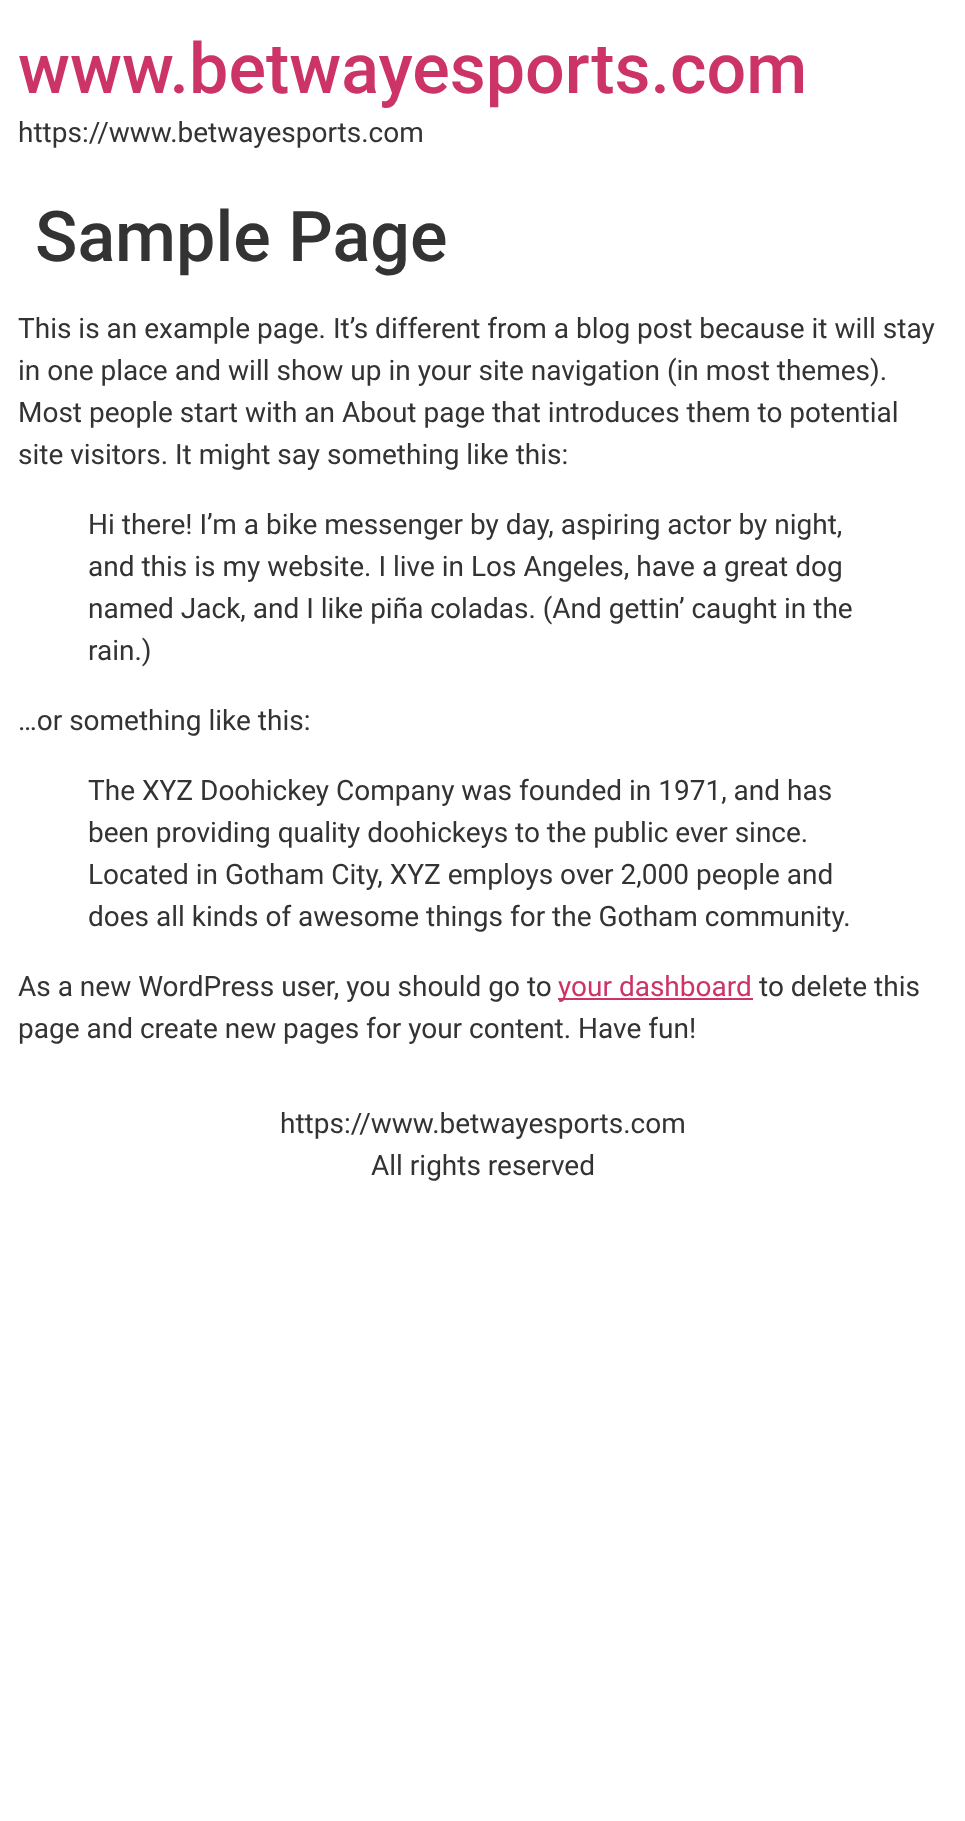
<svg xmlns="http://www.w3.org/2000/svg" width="965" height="1821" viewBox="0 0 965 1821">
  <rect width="100%" height="100%" fill="#fff"/>
  <path d="M558 998h195v2H558z" fill="#c36"/>
  <text x="18" y="93" font-family="Roboto" font-size="70" font-weight="500" fill="#c36">www.betwayesports.com</text>
  <text x="18" y="142" font-family="Roboto" font-size="28" fill="#333">https://www.betwayesports.com</text>
  <text x="35" y="261" font-family="Roboto" font-size="70" font-weight="500" fill="#333">Sample Page</text>
  <g font-family="Roboto" font-size="28" fill="#333">
    <text x="18" y="338">This is an example page. It’s different from a blog post because it will stay</text>
    <text x="18" y="380">in one place and will show up in your site navigation (in most themes).</text>
    <text x="18" y="422">Most people start with an About page that introduces them to potential</text>
    <text x="18" y="464">site visitors. It might say something like this:</text>
    <text x="88" y="534">Hi there! I’m a bike messenger by day, aspiring actor by night,</text>
    <text x="88" y="576">and this is my website. I live in Los Angeles, have a great dog</text>
    <text x="88" y="618">named Jack, and I like piña coladas. (And gettin’ caught in the</text>
    <text x="88" y="660">rain.)</text>
    <text x="18" y="730">…or something like this:</text>
    <text x="88" y="800">The XYZ Doohickey Company was founded in 1971, and has</text>
    <text x="88" y="842">been providing quality doohickeys to the public ever since.</text>
    <text x="88" y="884">Located in Gotham City, XYZ employs over 2,000 people and</text>
    <text x="88" y="926">does all kinds of awesome things for the Gotham community.</text>
    <text x="18" y="996">As a new WordPress user, you should go to</text>
  </g>
  <text x="558" y="996" font-family="Roboto" font-size="28" fill="#c36">your dashboard</text>
  <g font-family="Roboto" font-size="28" fill="#333">
    <text x="759" y="996">to delete this</text>
    <text x="18" y="1038">page and create new pages for your content. Have fun!</text>
    <text x="280" y="1133">https://www.betwayesports.com</text>
    <text x="371" y="1175">All rights reserved</text>
  </g>
</svg>
